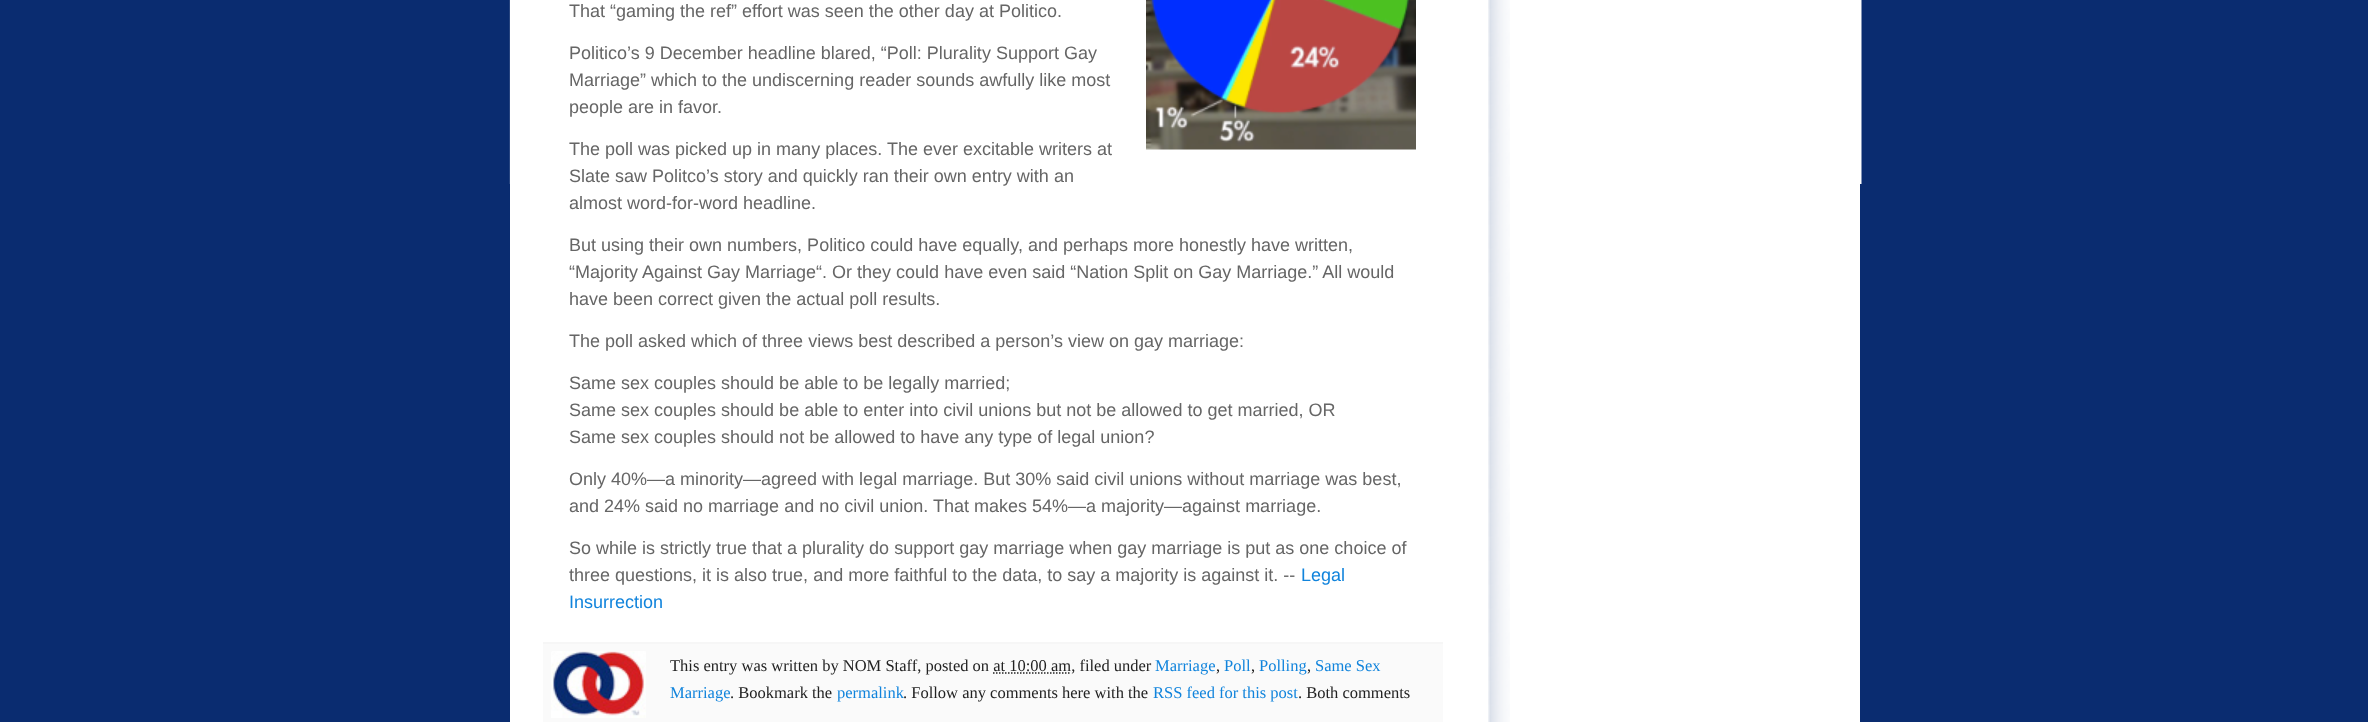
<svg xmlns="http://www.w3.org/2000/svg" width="2368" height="722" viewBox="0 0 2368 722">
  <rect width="100%" height="100%" fill="#0a2c70"/>
  <image x="509" y="0" width="1353" height="184" href="img/1.png"/>
  <path d="M510 0h1350v722H510z" fill="#fff"/>
  <image x="1488" y="0" width="22" height="722" href="img/2.png"/>
  <image x="1146" y="0" width="270" height="150" href="img/3.png"/>
  <path d="M543 644h900v78H543z" fill="#fafafa"/>
  <path d="M543 642h900v2H543z" fill="#f6f6f6"/>
  <image x="551" y="651" width="95" height="67" href="img/4.png"/>
  <path d="M993 673H1071" fill="none" stroke="#222" stroke-width="1.5" stroke-dasharray="1.5 1.5"/>
  <g font-family="Liberation Sans" font-size="18" fill="#666">
    <text x="569" y="17">That “gaming the ref” effort was seen the other day at Politico.</text>
    <text x="569" y="59">Politico’s 9 December headline blared, “Poll: Plurality Support Gay</text>
    <text x="569" y="86">Marriage” which to the undiscerning reader sounds awfully like most</text>
    <text x="569" y="113">people are in favor.</text>
    <text x="569" y="155">The poll was picked up in many places.</text>
    <text x="887" y="155">The ever excitable writers at</text>
    <text x="569" y="182">Slate saw Politco’s story and quickly ran their own entry with an</text>
    <text x="569" y="209">almost word-for-word headline.</text>
    <text x="569" y="251">But using their own numbers, Politico could have equally, and perhaps more honestly have written,</text>
    <text x="569" y="278">“Majority Against Gay Marriage“. Or they could have even said “Nation Split on Gay Marriage.” All would</text>
    <text x="569" y="305">have been correct given the actual poll results.</text>
    <text x="569" y="347">The poll asked which of three views best described a person’s view on gay marriage:</text>
    <text x="569" y="389">Same sex couples should be able to be legally married;</text>
    <text x="569" y="416">Same sex couples should be able to enter into civil unions but not be allowed to get married, OR</text>
    <text x="569" y="443">Same sex couples should not be allowed to have any type of legal union?</text>
    <text x="569" y="485">Only 40%—a minority—agreed with legal marriage. But 30% said civil unions without marriage was best,</text>
    <text x="569" y="512">and 24% said no marriage and no civil union.</text>
    <text x="933" y="512">That makes 54%—a majority—against marriage.</text>
    <text x="569" y="554">So while is strictly true that a plurality do support gay marriage when gay marriage is put as one choice of</text>
    <text x="569" y="581">three questions, it is also true, and more faithful to the data, to say a majority is against it. --</text>
  </g>
  <g font-family="Liberation Sans" font-size="18" fill="#1184dc">
    <text x="1301" y="581">Legal</text>
    <text x="569" y="608">Insurrection</text>
  </g>
  <text x="670" y="671" font-family="Liberation Serif" font-size="16.5" fill="#222">This entry was written by NOM Staff, posted on at 10:00 am, filed under</text>
  <text x="1155" y="671" font-family="Liberation Serif" font-size="16.5" fill="#1184dc">Marriage</text>
  <text x="1216" y="671" font-family="Liberation Serif" font-size="16.5" fill="#222">,</text>
  <text x="1224" y="671" font-family="Liberation Serif" font-size="16.5" fill="#1184dc">Poll</text>
  <text x="1251" y="671" font-family="Liberation Serif" font-size="16.5" fill="#222">,</text>
  <text x="1259" y="671" font-family="Liberation Serif" font-size="16.5" fill="#1184dc">Polling</text>
  <text x="1307" y="671" font-family="Liberation Serif" font-size="16.5" fill="#222">,</text>
  <g font-family="Liberation Serif" font-size="16.5" fill="#1184dc">
    <text x="1315" y="671">Same Sex</text>
    <text x="670" y="698">Marriage</text>
  </g>
  <text x="730" y="698" font-family="Liberation Serif" font-size="16.5" fill="#222">. Bookmark the</text>
  <text x="837" y="698" font-family="Liberation Serif" font-size="16.5" fill="#1184dc">permalink</text>
  <text x="903" y="698" font-family="Liberation Serif" font-size="16.5" fill="#222">. Follow any comments here with the</text>
  <text x="1153" y="698" font-family="Liberation Serif" font-size="16.5" fill="#1184dc">RSS feed for this post</text>
  <text x="1298" y="698" font-family="Liberation Serif" font-size="16.5" fill="#222">. Both comments</text>
</svg>
